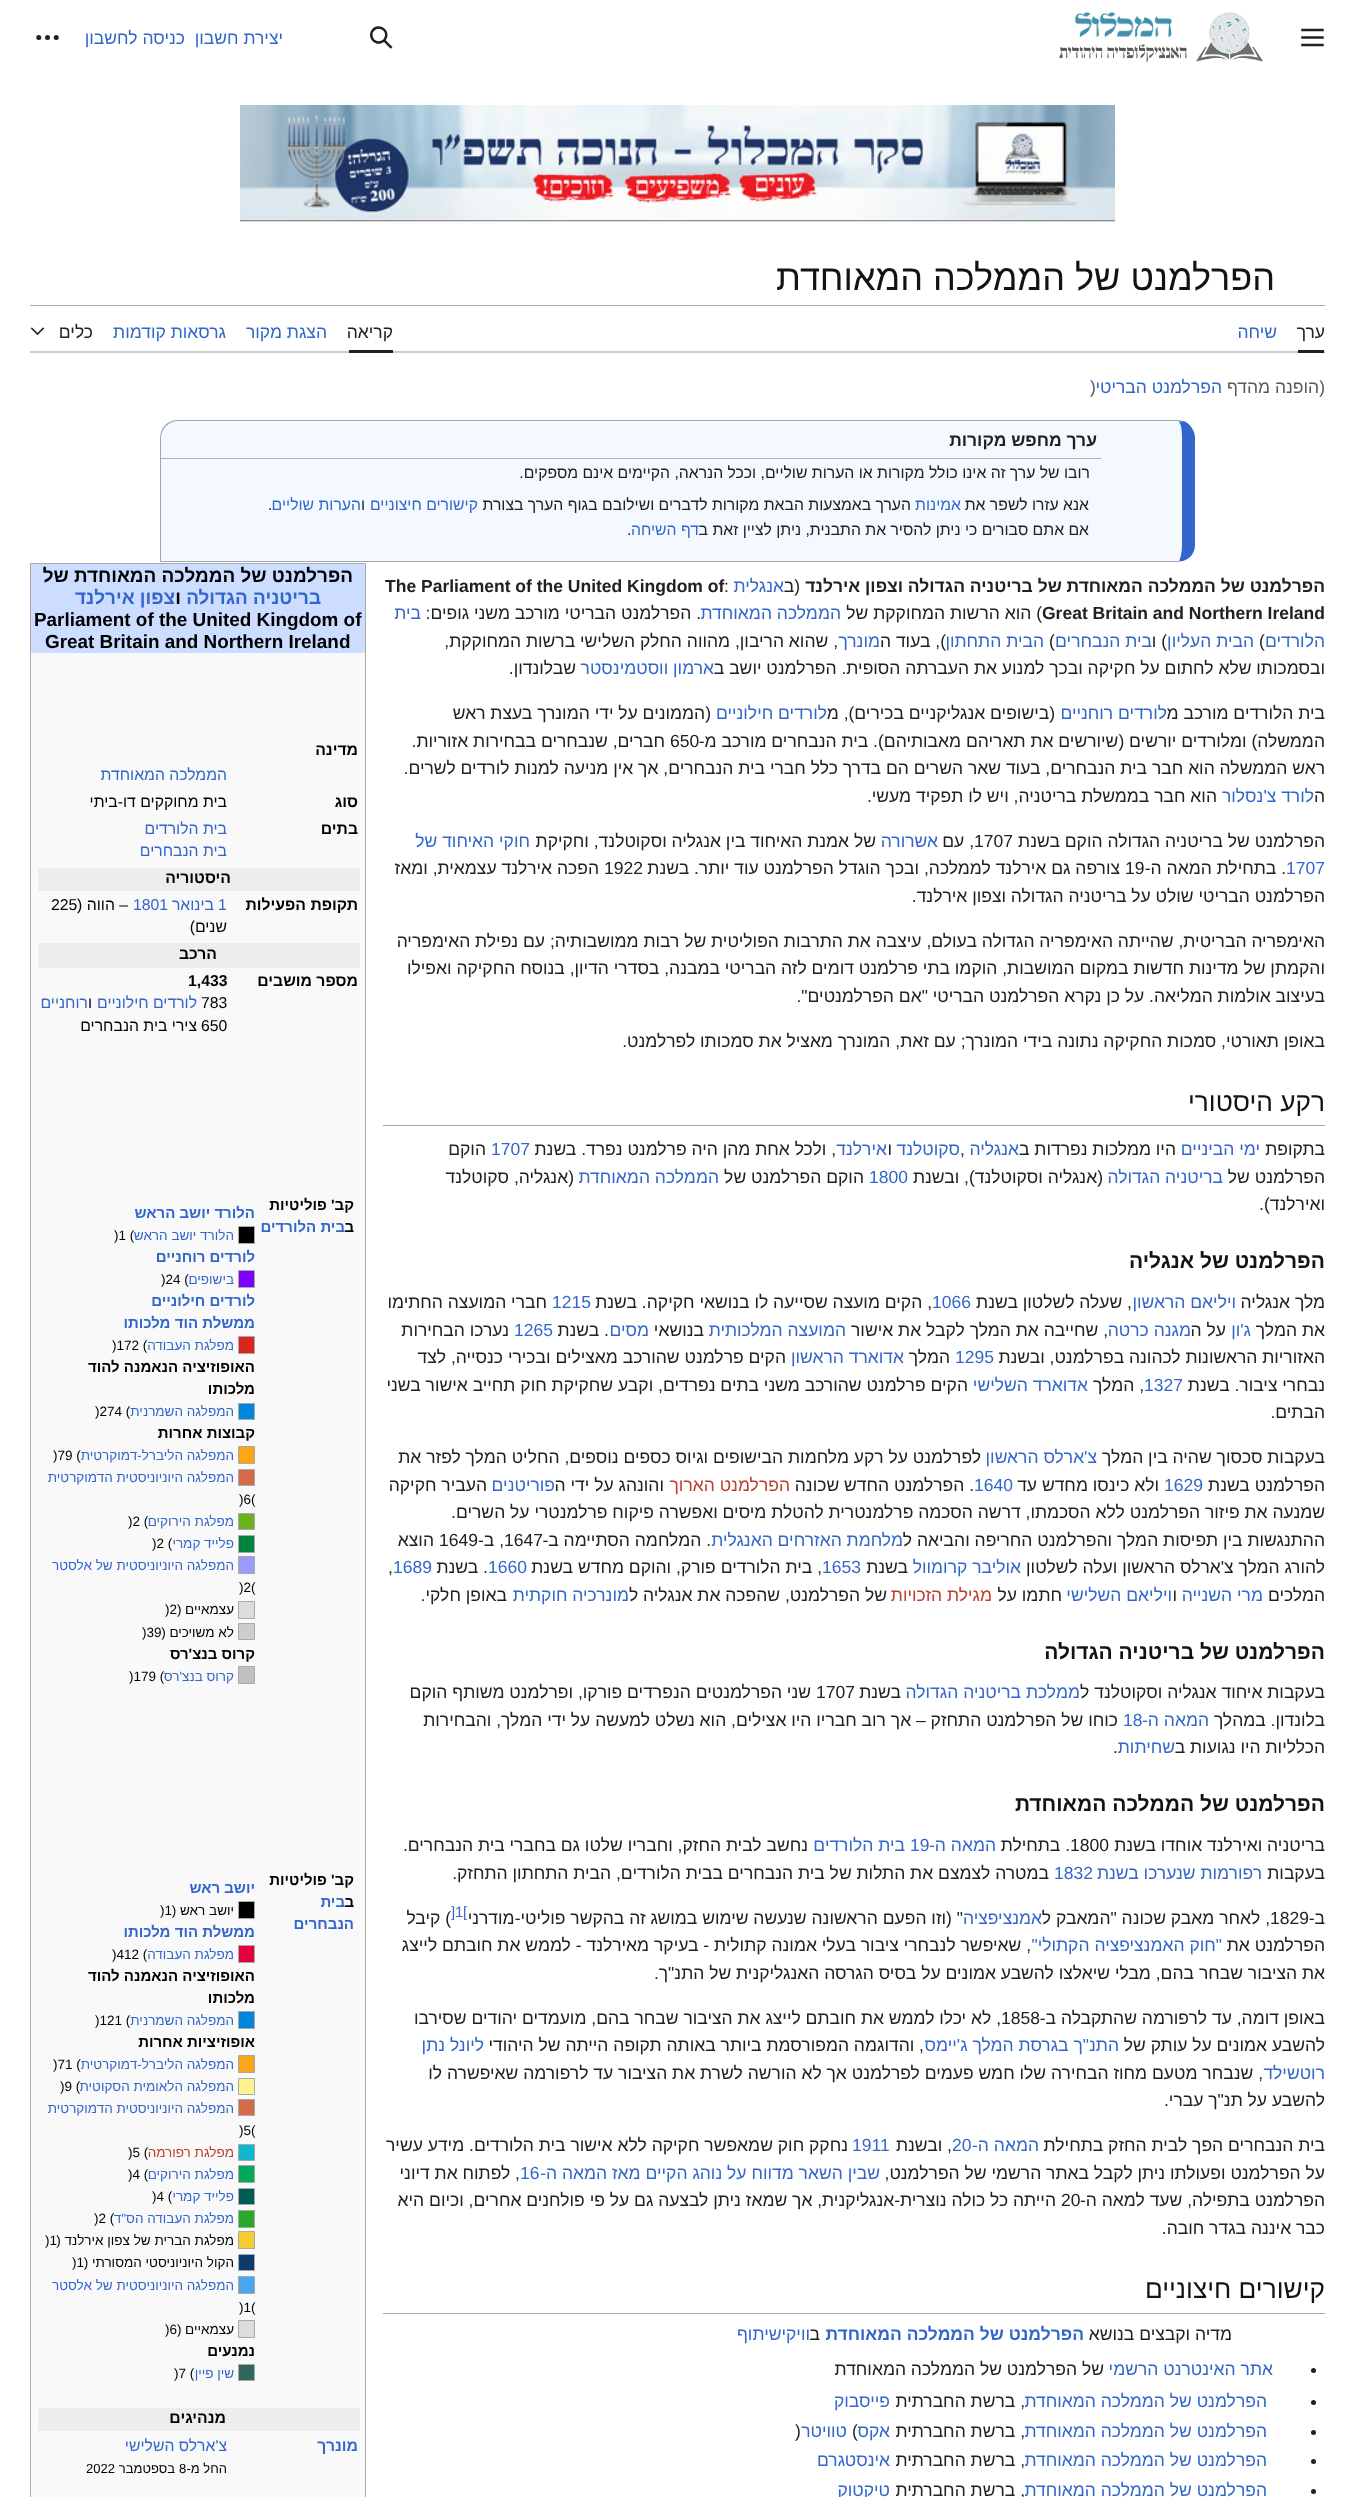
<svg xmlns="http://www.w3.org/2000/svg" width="1355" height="2497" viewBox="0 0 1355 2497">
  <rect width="100%" height="100%" fill="#fff"/>
  <image x="1301" y="28" width="23" height="19" href="img/1.png"/>
  <image x="1196" y="12" width="67" height="50" href="img/2.png"/>
  <image x="1074" y="12" width="98" height="26" href="img/3.png"/>
  <image x="1059" y="43" width="128" height="20" href="img/4.png"/>
  <image x="370" y="26" width="23" height="23" href="img/5.png"/>
  <image x="36" y="35" width="23" height="5" href="img/6.png"/>
  <image x="240" y="105" width="875" height="117" href="img/7.png"/>
  <path d="M30 305h1295v1H30z" fill="#a2a9b1"/>
  <path d="M30 351h1295v2H30z" fill="#c8ccd1"/>
  <path d="M1298 350h26v3H1298z" fill="#202122"/>
  <path d="M349 350h44v3H349z" fill="#202122"/>
  <image x="30" y="327" width="15" height="9" href="img/8.png"/>
  <path d="M178 421H1178C1180 421 1182 429 1182 438V545C1182 554 1180 561 1178 561H161V438C161 429 169 421 178 421Z" fill="#f3f9ff"/>
  <path d="M178 420C173 420 168 422 165 425L166 426C169 423 174 421 178 421H1178L1179 422L1184 421L1178 420Z" fill="#a2a9b1"/>
  <path d="M1195 545V438C1195 430 1190 424 1184 421L1179 422C1181 424 1182 430 1182 438V545C1182 553 1180 560 1179 561H1183C1190 559 1195 553 1195 545Z" fill="#36c"/>
  <path d="M1183 561L1178 562H160L162 561H1179Z" fill="#a2a9b1"/>
  <path d="M160 438V562L162 561H161V438C161 434 163 429 166 426L165 425C162 428 160 433 160 438Z" fill="#a2a9b1"/>
  <path d="M161 458h940v1H161z" fill="#afafaf"/>
  <path d="M31 653h334v1844H31z" fill="#f9f9f9"/>
  <path d="M30.5 563.5h335v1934H30.5z" fill="none" stroke="#aaa"/>
  <path d="M31 564h334v89H31z" fill="#cdf"/>
  <path d="M38 868h322v23H38z" fill="#ededed"/>
  <path d="M38 943h322v25H38z" fill="#ededed"/>
  <path d="M238.5 1226.5h16v17H238.5z" fill="#000" stroke="#a9a9a9"/>
  <path d="M238.5 1270.5h16v17H238.5z" fill="#7e00ff" stroke="#a9a9a9"/>
  <path d="M238.5 1336.5h16v17H238.5z" fill="#dc241f" stroke="#a9a9a9"/>
  <path d="M238.5 1403.5h16v16H238.5z" fill="#0087dc" stroke="#a9a9a9"/>
  <path d="M238.5 1446.5h16v17H238.5z" fill="#faa713" stroke="#a9a9a9"/>
  <path d="M238.5 1469.5h16v16H238.5z" fill="#d56a4a" stroke="#a9a9a9"/>
  <path d="M238.5 1513.5h16v16H238.5z" fill="#6ab21e" stroke="#a9a9a9"/>
  <path d="M238.5 1535.5h16v17H238.5z" fill="#008240" stroke="#a9a9a9"/>
  <path d="M238.5 1556.5h16v17H238.5z" fill="#9a9aff" stroke="#a9a9a9"/>
  <path d="M238.5 1601.5h16v17H238.5z" fill="#dcdcdc" stroke="#a9a9a9"/>
  <path d="M238.5 1623.5h16v16H238.5z" fill="#cdcdcd" stroke="#a9a9a9"/>
  <path d="M238.5 1666.5h16v17H238.5z" fill="#c1c1c1" stroke="#a9a9a9"/>
  <path d="M238.5 1901.5h16v17H238.5z" fill="#000" stroke="#a9a9a9"/>
  <path d="M238.5 1945.5h16v17H238.5z" fill="#e4003b" stroke="#a9a9a9"/>
  <path d="M238.5 2011.5h16v17H238.5z" fill="#0087dc" stroke="#a9a9a9"/>
  <path d="M238.5 2055.5h16v17H238.5z" fill="#faa61a" stroke="#a9a9a9"/>
  <path d="M238.5 2078.5h16v16H238.5z" fill="#fdf38e" stroke="#a9a9a9"/>
  <path d="M238.5 2099.5h16v16H238.5z" fill="#d46a4c" stroke="#a9a9a9"/>
  <path d="M238.5 2144.5h16v16H238.5z" fill="#12b6cf" stroke="#a9a9a9"/>
  <path d="M238.5 2165.5h16v17H238.5z" fill="#02a95b" stroke="#a9a9a9"/>
  <path d="M238.5 2188.5h16v16H238.5z" fill="#005b54" stroke="#a9a9a9"/>
  <path d="M238.5 2210.5h16v17H238.5z" fill="#2aa82c" stroke="#a9a9a9"/>
  <path d="M238.5 2231.5h16v17H238.5z" fill="#f6cb2f" stroke="#a9a9a9"/>
  <path d="M238.5 2254.5h16v16H238.5z" fill="#0c3a6a" stroke="#a9a9a9"/>
  <path d="M238.5 2276.5h16v17H238.5z" fill="#48a5ee" stroke="#a9a9a9"/>
  <path d="M238.5 2320.5h16v17H238.5z" fill="#dcdcdc" stroke="#a9a9a9"/>
  <path d="M238.5 2364.5h16v16H238.5z" fill="#326760" stroke="#a9a9a9"/>
  <path d="M38 2408h322v23H38z" fill="#ededed"/>
  <path d="M383 1125h942v1H383z" fill="#a2a9b1"/>
  <path d="M383 2313h942v1H383z" fill="#a2a9b1"/>
  <circle cx="1313.5" cy="2370.5" r="2.5" fill="#202122"/>
  <circle cx="1313.5" cy="2402.5" r="2.5" fill="#202122"/>
  <circle cx="1313.5" cy="2432.5" r="2.5" fill="#202122"/>
  <circle cx="1313.5" cy="2461.5" r="2.5" fill="#202122"/>
  <circle cx="1313.5" cy="2491.5" r="2.5" fill="#202122"/>
  <g font-family="Liberation Sans" font-size="17.5" direction="rtl" fill="#36c">
    <text x="283" y="44">יצירת חשבון</text>
    <text x="185" y="44">כניסה לחשבון</text>
  </g>
  <text x="1275" y="290" font-family="Liberation Sans" font-size="36" direction="rtl" fill="#101418">הפרלמנט של הממלכה המאוחדת</text>
  <text x="1325" y="338" font-family="Liberation Sans" font-size="17.5" direction="rtl" fill="#202122">ערך</text>
  <text x="1277" y="338" font-family="Liberation Sans" font-size="17.5" direction="rtl" fill="#36c">שיחה</text>
  <text x="393" y="338" font-family="Liberation Sans" font-size="17.5" direction="rtl" fill="#202122">קריאה</text>
  <g font-family="Liberation Sans" font-size="17.5" direction="rtl" fill="#36c">
    <text x="327" y="338">הצגת מקור</text>
    <text x="226" y="338">גרסאות קודמות</text>
  </g>
  <text x="93" y="338" font-family="Liberation Sans" font-size="17.5" direction="rtl" fill="#202122">כלים</text>
  <text x="1325" y="393" font-family="Liberation Sans" font-size="17.5" direction="rtl" fill="#54595d">(הופנה מהדף</text>
  <text x="1222" y="393" font-family="Liberation Sans" font-size="17.5" direction="rtl" fill="#36c">הפרלמנט הבריטי</text>
  <text x="1090" y="393" font-family="Liberation Sans" font-size="17.5" fill="#54595d">)</text>
  <text x="1097" y="446" font-family="Liberation Sans" font-size="17.5" font-weight="bold" direction="rtl" fill="#202122">ערך מחפש מקורות</text>
  <g font-family="Liberation Sans" font-size="15.75" direction="rtl" fill="#202122">
    <text x="1090" y="478">רובו של ערך זה אינו כולל מקורות או הערות שוליים, וככל הנראה, הקיימים אינם מספקים.</text>
    <text x="1089" y="510">אנא עזרו לשפר את</text>
  </g>
  <text x="961" y="510" font-family="Liberation Sans" font-size="15.75" direction="rtl" fill="#36c">אמינות</text>
  <text x="911" y="510" font-family="Liberation Sans" font-size="15.75" direction="rtl" fill="#202122">הערך באמצעות הבאת מקורות לדברים ושילובם בגוף הערך בצורת</text>
  <text x="478" y="510" font-family="Liberation Sans" font-size="15.75" direction="rtl" fill="#36c">קישורים חיצוניים</text>
  <text x="365" y="510" font-family="Liberation Sans" font-size="15.75" direction="rtl" fill="#202122">ו</text>
  <text x="361" y="510" font-family="Liberation Sans" font-size="15.75" direction="rtl" fill="#36c">הערות שוליים</text>
  <text x="268" y="510" font-family="Liberation Sans" font-size="15.75" fill="#202122">.</text>
  <text x="1089" y="535" font-family="Liberation Sans" font-size="15.75" direction="rtl" fill="#202122">אם אתם סבורים כי ניתן להסיר את התבנית, ניתן לציין זאת ב</text>
  <text x="699" y="535" font-family="Liberation Sans" font-size="15.75" direction="rtl" fill="#36c">דף השיחה</text>
  <text x="627" y="535" font-family="Liberation Sans" font-size="15.75" fill="#202122">.</text>
  <text x="1325" y="592" font-family="Liberation Sans" font-size="17.5" font-weight="bold" direction="rtl" fill="#202122">הפרלמנט של הממלכה המאוחדת של בריטניה הגדולה וצפון אירלנד</text>
  <text x="800" y="592" font-family="Liberation Sans" font-size="17.5" direction="rtl" fill="#202122">(ב</text>
  <text x="784" y="592" font-family="Liberation Sans" font-size="17.5" direction="rtl" fill="#36c">אנגלית</text>
  <text x="724" y="592" font-family="Liberation Sans" font-size="17.5" fill="#202122">:</text>
  <g font-family="Liberation Sans" font-size="17.5" font-weight="bold" fill="#202122">
    <text x="385" y="592">The Parliament of the United Kingdom of</text>
    <text x="1042" y="619">Great Britain and Northern Ireland</text>
  </g>
  <text x="1042" y="619" font-family="Liberation Sans" font-size="17.5" direction="rtl" fill="#202122">) הוא הרשות המחוקקת של</text>
  <text x="841" y="619" font-family="Liberation Sans" font-size="17.5" direction="rtl" fill="#36c">הממלכה המאוחדת</text>
  <text x="701" y="619" font-family="Liberation Sans" font-size="17.5" direction="rtl" fill="#202122">. הפרלמנט הבריטי מורכב משני גופים:</text>
  <g font-family="Liberation Sans" font-size="17.5" direction="rtl" fill="#36c">
    <text x="421" y="619">בית</text>
    <text x="1325" y="647">הלורדים</text>
  </g>
  <text x="1259" y="647" font-family="Liberation Sans" font-size="17.5" fill="#202122">(</text>
  <text x="1254" y="647" font-family="Liberation Sans" font-size="17.5" direction="rtl" fill="#36c">הבית העליון</text>
  <text x="1167" y="647" font-family="Liberation Sans" font-size="17.5" direction="rtl" fill="#202122">) ו</text>
  <text x="1152" y="647" font-family="Liberation Sans" font-size="17.5" direction="rtl" fill="#36c">בית הנבחרים</text>
  <text x="1049" y="647" font-family="Liberation Sans" font-size="17.5" fill="#202122">(</text>
  <text x="1044" y="647" font-family="Liberation Sans" font-size="17.5" direction="rtl" fill="#36c">הבית התחתון</text>
  <text x="946" y="647" font-family="Liberation Sans" font-size="17.5" direction="rtl" fill="#202122">), בעוד ה</text>
  <text x="880" y="647" font-family="Liberation Sans" font-size="17.5" direction="rtl" fill="#36c">מונרך</text>
  <g font-family="Liberation Sans" font-size="17.5" direction="rtl" fill="#202122">
    <text x="838" y="647">, שהוא הריבון, מהווה החלק השלישי ברשות המחוקקת,</text>
    <text x="1325" y="674">ובסמכותו שלא לחתום על חקיקה ובכך למנוע את העברתה הסופית. הפרלמנט יושב ב</text>
  </g>
  <text x="714" y="674" font-family="Liberation Sans" font-size="17.5" direction="rtl" fill="#36c">ארמון ווסטמינסטר</text>
  <text x="576" y="674" font-family="Liberation Sans" font-size="17.5" direction="rtl" fill="#202122">שבלונדון.</text>
  <text x="353" y="582" font-family="Liberation Sans" font-size="18.9" font-weight="bold" direction="rtl" fill="#000">הפרלמנט של הממלכה המאוחדת של</text>
  <text x="321" y="604" font-family="Liberation Sans" font-size="18.9" font-weight="bold" direction="rtl" fill="#36c">בריטניה הגדולה</text>
  <text x="181" y="604" font-family="Liberation Sans" font-size="18.9" font-weight="bold" direction="rtl" fill="#000">ו</text>
  <text x="175" y="604" font-family="Liberation Sans" font-size="18.9" font-weight="bold" direction="rtl" fill="#36c">צפון אירלנד</text>
  <g font-family="Liberation Sans" font-size="18.9" font-weight="bold" fill="#000">
    <text x="34" y="626">Parliament of the United Kingdom of</text>
    <text x="45" y="648">Great Britain and Northern Ireland</text>
  </g>
  <text x="358" y="755" font-family="Liberation Sans" font-size="15.75" font-weight="bold" direction="rtl" fill="#000">מדינה</text>
  <text x="227" y="780" font-family="Liberation Sans" font-size="15.75" direction="rtl" fill="#36c">הממלכה המאוחדת</text>
  <text x="358" y="807" font-family="Liberation Sans" font-size="15.75" font-weight="bold" direction="rtl" fill="#000">סוג</text>
  <text x="227" y="807" font-family="Liberation Sans" font-size="15.75" direction="rtl" fill="#000">בית מחוקקים דו-ביתי</text>
  <text x="358" y="834" font-family="Liberation Sans" font-size="15.75" font-weight="bold" direction="rtl" fill="#000">בתים</text>
  <g font-family="Liberation Sans" font-size="15.75" direction="rtl" fill="#36c">
    <text x="227" y="834">בית הלורדים</text>
    <text x="227" y="856">בית הנבחרים</text>
  </g>
  <g font-family="Liberation Sans" font-size="15.75" font-weight="bold" direction="rtl" fill="#000">
    <text x="231" y="883">היסטוריה</text>
    <text x="358" y="910">תקופת הפעילות</text>
  </g>
  <text x="218" y="910" font-family="Liberation Sans" font-size="15.75" fill="#36c">1</text>
  <text x="214" y="910" font-family="Liberation Sans" font-size="15.75" direction="rtl" fill="#36c">בינואר</text>
  <text x="133" y="910" font-family="Liberation Sans" font-size="15.75" fill="#36c">1801</text>
  <text x="128" y="910" font-family="Liberation Sans" font-size="15.75" direction="rtl" fill="#000">– הווה (</text>
  <text x="51" y="910" font-family="Liberation Sans" font-size="15.75" fill="#000">225</text>
  <text x="227" y="932" font-family="Liberation Sans" font-size="15.75" direction="rtl" fill="#000">שנים)</text>
  <g font-family="Liberation Sans" font-size="15.75" font-weight="bold" direction="rtl" fill="#000">
    <text x="217" y="959">הרכב</text>
    <text x="358" y="986">מספר מושבים</text>
  </g>
  <text x="188" y="986" font-family="Liberation Sans" font-size="15.75" font-weight="bold" fill="#000">1,433</text>
  <text x="201" y="1008" font-family="Liberation Sans" font-size="15.75" fill="#000">783</text>
  <text x="197" y="1008" font-family="Liberation Sans" font-size="15.75" direction="rtl" fill="#36c">לורדים חילוניים</text>
  <text x="92" y="1008" font-family="Liberation Sans" font-size="15.75" direction="rtl" fill="#000">ו</text>
  <text x="88" y="1008" font-family="Liberation Sans" font-size="15.75" direction="rtl" fill="#36c">רוחניים</text>
  <text x="201" y="1031" font-family="Liberation Sans" font-size="15.75" fill="#000">650</text>
  <text x="197" y="1031" font-family="Liberation Sans" font-size="15.75" direction="rtl" fill="#000">צירי בית הנבחרים</text>
  <g font-family="Liberation Sans" font-size="15" font-weight="bold" direction="rtl" fill="#000">
    <text x="354" y="1210">קב' פוליטיות</text>
    <text x="354" y="1232">ב</text>
  </g>
  <g font-family="Liberation Sans" font-size="15" font-weight="bold" direction="rtl" fill="#36c">
    <text x="345" y="1232">בית הלורדים</text>
    <text x="255" y="1218">הלורד יושב הראש</text>
  </g>
  <text x="234" y="1240" font-family="Liberation Sans" font-size="13.5" direction="rtl" fill="#36c">הלורד יושב הראש</text>
  <text x="114" y="1240" font-family="Liberation Sans" font-size="13.5" fill="#000">)1 (</text>
  <text x="255" y="1262" font-family="Liberation Sans" font-size="15" font-weight="bold" direction="rtl" fill="#36c">לורדים רוחניים</text>
  <text x="234" y="1284" font-family="Liberation Sans" font-size="13.5" direction="rtl" fill="#36c">בישופים</text>
  <text x="161" y="1284" font-family="Liberation Sans" font-size="13.5" fill="#000">)24 (</text>
  <g font-family="Liberation Sans" font-size="15" font-weight="bold" direction="rtl" fill="#36c">
    <text x="255" y="1306">לורדים חילוניים</text>
    <text x="255" y="1328">ממשלת הוד מלכותו</text>
  </g>
  <text x="234" y="1350" font-family="Liberation Sans" font-size="13.5" direction="rtl" fill="#36c">מפלגת העבודה</text>
  <text x="112" y="1350" font-family="Liberation Sans" font-size="13.5" fill="#000">)172 (</text>
  <g font-family="Liberation Sans" font-size="15" font-weight="bold" direction="rtl" fill="#000">
    <text x="255" y="1372">האופוזיציה הנאמנה להוד</text>
    <text x="255" y="1394">מלכותו</text>
  </g>
  <text x="234" y="1416" font-family="Liberation Sans" font-size="13.5" direction="rtl" fill="#36c">המפלגה השמרנית</text>
  <text x="95" y="1416" font-family="Liberation Sans" font-size="13.5" fill="#000">)274 (</text>
  <text x="255" y="1438" font-family="Liberation Sans" font-size="15" font-weight="bold" direction="rtl" fill="#000">קבוצות אחרות</text>
  <text x="234" y="1460" font-family="Liberation Sans" font-size="13.5" direction="rtl" fill="#36c">המפלגה הליברל-דמוקרטית</text>
  <text x="53" y="1460" font-family="Liberation Sans" font-size="13.5" fill="#000">)79 (</text>
  <text x="234" y="1482" font-family="Liberation Sans" font-size="13.5" direction="rtl" fill="#36c">המפלגה היוניוניסטית הדמוקרטית</text>
  <text x="239" y="1504" font-family="Liberation Sans" font-size="13.5" fill="#000">)6(</text>
  <text x="234" y="1526" font-family="Liberation Sans" font-size="13.5" direction="rtl" fill="#36c">מפלגת הירוקים</text>
  <text x="128" y="1526" font-family="Liberation Sans" font-size="13.5" fill="#000">)2 (</text>
  <text x="234" y="1548" font-family="Liberation Sans" font-size="13.5" direction="rtl" fill="#36c">פלייד קמרי</text>
  <text x="152" y="1548" font-family="Liberation Sans" font-size="13.5" fill="#000">)2 (</text>
  <text x="234" y="1570" font-family="Liberation Sans" font-size="13.5" direction="rtl" fill="#36c">המפלגה היוניוניסטית של אלסטר</text>
  <text x="239" y="1592" font-family="Liberation Sans" font-size="13.5" fill="#000">)2(</text>
  <text x="234" y="1614" font-family="Liberation Sans" font-size="13.5" direction="rtl" fill="#000">עצמאיים (</text>
  <text x="165" y="1614" font-family="Liberation Sans" font-size="13.5" fill="#000">)2</text>
  <text x="234" y="1637" font-family="Liberation Sans" font-size="13.5" direction="rtl" fill="#000">לא משויכים (</text>
  <text x="142" y="1637" font-family="Liberation Sans" font-size="13.5" fill="#000">)39</text>
  <text x="255" y="1659" font-family="Liberation Sans" font-size="15" font-weight="bold" direction="rtl" fill="#000">קרוס בנצ'רס</text>
  <text x="234" y="1681" font-family="Liberation Sans" font-size="13.5" direction="rtl" fill="#36c">קרוס בנצ'רס</text>
  <text x="129" y="1681" font-family="Liberation Sans" font-size="13.5" fill="#000">)179 (</text>
  <g font-family="Liberation Sans" font-size="15" font-weight="bold" direction="rtl" fill="#000">
    <text x="354" y="1885">קב' פוליטיות</text>
    <text x="354" y="1907">ב</text>
  </g>
  <g font-family="Liberation Sans" font-size="15" font-weight="bold" direction="rtl" fill="#36c">
    <text x="345" y="1907">בית</text>
    <text x="354" y="1929">הנבחרים</text>
    <text x="255" y="1893">יושב ראש</text>
  </g>
  <text x="234" y="1915" font-family="Liberation Sans" font-size="13.5" direction="rtl" fill="#000">יושב ראש (</text>
  <text x="160" y="1915" font-family="Liberation Sans" font-size="13.5" fill="#000">)1</text>
  <text x="255" y="1937" font-family="Liberation Sans" font-size="15" font-weight="bold" direction="rtl" fill="#36c">ממשלת הוד מלכותו</text>
  <text x="234" y="1959" font-family="Liberation Sans" font-size="13.5" direction="rtl" fill="#36c">מפלגת העבודה</text>
  <text x="112" y="1959" font-family="Liberation Sans" font-size="13.5" fill="#000">)412 (</text>
  <g font-family="Liberation Sans" font-size="15" font-weight="bold" direction="rtl" fill="#000">
    <text x="255" y="1981">האופוזיציה הנאמנה להוד</text>
    <text x="255" y="2003">מלכותו</text>
  </g>
  <text x="234" y="2025" font-family="Liberation Sans" font-size="13.5" direction="rtl" fill="#36c">המפלגה השמרנית</text>
  <text x="95" y="2025" font-family="Liberation Sans" font-size="13.5" fill="#000">)121 (</text>
  <text x="255" y="2047" font-family="Liberation Sans" font-size="15" font-weight="bold" direction="rtl" fill="#000">אופוזיציות אחרות</text>
  <text x="234" y="2069" font-family="Liberation Sans" font-size="13.5" direction="rtl" fill="#36c">המפלגה הליברל-דמוקרטית</text>
  <text x="53" y="2069" font-family="Liberation Sans" font-size="13.5" fill="#000">)71 (</text>
  <text x="234" y="2091" font-family="Liberation Sans" font-size="13.5" direction="rtl" fill="#36c">המפלגה הלאומית הסקוטית</text>
  <text x="60" y="2091" font-family="Liberation Sans" font-size="13.5" fill="#000">)9 (</text>
  <text x="234" y="2113" font-family="Liberation Sans" font-size="13.5" direction="rtl" fill="#36c">המפלגה היוניוניסטית הדמוקרטית</text>
  <text x="239" y="2135" font-family="Liberation Sans" font-size="13.5" fill="#000">)5(</text>
  <text x="234" y="2157" font-family="Liberation Sans" font-size="13.5" direction="rtl" fill="#bf3c2c">מפלגת רפורמה</text>
  <text x="128" y="2157" font-family="Liberation Sans" font-size="13.5" fill="#000">)5 (</text>
  <text x="234" y="2179" font-family="Liberation Sans" font-size="13.5" direction="rtl" fill="#36c">מפלגת הירוקים</text>
  <text x="128" y="2179" font-family="Liberation Sans" font-size="13.5" fill="#000">)4 (</text>
  <text x="234" y="2201" font-family="Liberation Sans" font-size="13.5" direction="rtl" fill="#36c">פלייד קמרי</text>
  <text x="152" y="2201" font-family="Liberation Sans" font-size="13.5" fill="#000">)4 (</text>
  <text x="234" y="2223" font-family="Liberation Sans" font-size="13.5" direction="rtl" fill="#36c">מפלגת העבודה הס"ד</text>
  <g font-family="Liberation Sans" font-size="13.5" fill="#000">
    <text x="94" y="2223">)2 (</text>
    <text x="45" y="2245">)1</text>
  </g>
  <g font-family="Liberation Sans" font-size="13.5" direction="rtl" fill="#000">
    <text x="234" y="2245">מפלגת הברית של צפון אירלנד (</text>
    <text x="234" y="2267">הקול היוניוניסטי המסורתי (</text>
  </g>
  <text x="72" y="2267" font-family="Liberation Sans" font-size="13.5" fill="#000">)1</text>
  <text x="234" y="2290" font-family="Liberation Sans" font-size="13.5" direction="rtl" fill="#36c">המפלגה היוניוניסטית של אלסטר</text>
  <text x="239" y="2312" font-family="Liberation Sans" font-size="13.5" fill="#000">)1(</text>
  <text x="234" y="2334" font-family="Liberation Sans" font-size="13.5" direction="rtl" fill="#000">עצמאיים (</text>
  <text x="165" y="2334" font-family="Liberation Sans" font-size="13.5" fill="#000">)6</text>
  <text x="255" y="2356" font-family="Liberation Sans" font-size="15" font-weight="bold" direction="rtl" fill="#000">נמנעים</text>
  <text x="234" y="2378" font-family="Liberation Sans" font-size="13.5" direction="rtl" fill="#36c">שין פיין</text>
  <text x="174" y="2378" font-family="Liberation Sans" font-size="13.5" fill="#000">)7 (</text>
  <text x="226" y="2423" font-family="Liberation Sans" font-size="15.75" font-weight="bold" direction="rtl" fill="#000">מנהיגים</text>
  <text x="358" y="2451" font-family="Liberation Sans" font-size="15.75" font-weight="bold" direction="rtl" fill="#36c">מונרך</text>
  <text x="227" y="2451" font-family="Liberation Sans" font-size="15.75" direction="rtl" fill="#36c">צ'ארלס השלישי</text>
  <text x="227" y="2473" font-family="Liberation Sans" font-size="13" direction="rtl" fill="#000">החל מ-</text>
  <text x="179" y="2473" font-family="Liberation Sans" font-size="13" fill="#000">8</text>
  <text x="175" y="2473" font-family="Liberation Sans" font-size="13" direction="rtl" fill="#000">בספטמבר</text>
  <text x="86" y="2473" font-family="Liberation Sans" font-size="13" fill="#000">2022</text>
  <text x="1325" y="719" font-family="Liberation Sans" font-size="17.5" direction="rtl" fill="#202122">בית הלורדים מורכב מ</text>
  <text x="1167" y="719" font-family="Liberation Sans" font-size="17.5" direction="rtl" fill="#36c">לורדים רוחניים</text>
  <text x="1055" y="719" font-family="Liberation Sans" font-size="17.5" direction="rtl" fill="#202122">(בישופים אנגליקניים בכירים), מ</text>
  <text x="827" y="719" font-family="Liberation Sans" font-size="17.5" direction="rtl" fill="#36c">לורדים חילוניים</text>
  <g font-family="Liberation Sans" font-size="17.5" direction="rtl" fill="#202122">
    <text x="711" y="719">(הממונים על ידי המונרך בעצת ראש</text>
    <text x="1325" y="747">הממשלה) ומלורדים יורשים (שיורשים את תאריהם מאבותיהם). בית הנבחרים מורכב מ-</text>
  </g>
  <text x="670" y="747" font-family="Liberation Sans" font-size="17.5" fill="#202122">650</text>
  <g font-family="Liberation Sans" font-size="17.5" direction="rtl" fill="#202122">
    <text x="665" y="747">חברים, שנבחרים בבחירות אזוריות.</text>
    <text x="1325" y="774">ראש הממשלה הוא חבר בית הנבחרים, בעוד שאר השרים הם בדרך כלל חברי בית הנבחרים, אך אין מניעה למנות לורדים לשרים.</text>
    <text x="1325" y="802">ה</text>
  </g>
  <text x="1314" y="802" font-family="Liberation Sans" font-size="17.5" direction="rtl" fill="#36c">לורד צ'נסלור</text>
  <g font-family="Liberation Sans" font-size="17.5" direction="rtl" fill="#202122">
    <text x="1217" y="802">הוא חבר בממשלת בריטניה, ויש לו תפקיד מעשי.</text>
    <text x="1325" y="847">הפרלמנט של בריטניה הגדולה הוקם בשנת</text>
  </g>
  <text x="974" y="847" font-family="Liberation Sans" font-size="17.5" fill="#202122">1707</text>
  <text x="974" y="847" font-family="Liberation Sans" font-size="17.5" direction="rtl" fill="#202122">, עם</text>
  <text x="938" y="847" font-family="Liberation Sans" font-size="17.5" direction="rtl" fill="#36c">אשרורה</text>
  <text x="876" y="847" font-family="Liberation Sans" font-size="17.5" direction="rtl" fill="#202122">של אמנת האיחוד בין אנגליה וסקוטלנד, וחקיקת</text>
  <text x="530" y="847" font-family="Liberation Sans" font-size="17.5" direction="rtl" fill="#36c">חוקי האיחוד של</text>
  <text x="1286" y="874" font-family="Liberation Sans" font-size="17.5" fill="#36c">1707</text>
  <text x="1286" y="874" font-family="Liberation Sans" font-size="17.5" direction="rtl" fill="#202122">. בתחילת המאה ה-</text>
  <text x="1125" y="874" font-family="Liberation Sans" font-size="17.5" fill="#202122">19</text>
  <text x="1120" y="874" font-family="Liberation Sans" font-size="17.5" direction="rtl" fill="#202122">צורפה גם אירלנד לממלכה, ובכך הוגדל הפרלמנט עוד יותר. בשנת</text>
  <text x="604" y="874" font-family="Liberation Sans" font-size="17.5" fill="#202122">1922</text>
  <g font-family="Liberation Sans" font-size="17.5" direction="rtl" fill="#202122">
    <text x="599" y="874">הפכה אירלנד עצמאית, ומאז</text>
    <text x="1325" y="902">הפרלמנט הבריטי שולט על בריטניה הגדולה וצפון אירלנד.</text>
    <text x="1325" y="947">האימפריה הבריטית, שהייתה האימפריה הגדולה בעולם, עיצבה את התרבות הפוליטית של רבות ממושבותיה; עם נפילת האימפריה</text>
    <text x="1325" y="974">והקמתן של מדינות חדשות במקום המושבות, הוקמו בתי פרלמנט דומים לזה הבריטי במבנה, בסדרי הדיון, בנוסח החקיקה ואפילו</text>
    <text x="1325" y="1002">בעיצוב אולמות המליאה. על כן נקרא הפרלמנט הבריטי "אם הפרלמנטים".</text>
    <text x="1325" y="1047">באופן תאורטי, סמכות החקיקה נתונה בידי המונרך; עם זאת, המונרך מאציל את סמכותו לפרלמנט.</text>
  </g>
  <text x="1325" y="1111" font-family="Liberation Sans" font-size="26.25" direction="rtl" fill="#101418">רקע היסטורי</text>
  <text x="1325" y="1155" font-family="Liberation Sans" font-size="17.5" direction="rtl" fill="#202122">בתקופת</text>
  <text x="1260" y="1155" font-family="Liberation Sans" font-size="17.5" direction="rtl" fill="#36c">ימי הביניים</text>
  <text x="1176" y="1155" font-family="Liberation Sans" font-size="17.5" direction="rtl" fill="#202122">היו ממלכות נפרדות ב</text>
  <text x="1019" y="1155" font-family="Liberation Sans" font-size="17.5" direction="rtl" fill="#36c">אנגליה</text>
  <text x="960" y="1155" font-family="Liberation Sans" font-size="17.5" fill="#202122">,</text>
  <text x="960" y="1155" font-family="Liberation Sans" font-size="17.5" direction="rtl" fill="#36c">סקוטלנד</text>
  <text x="892" y="1155" font-family="Liberation Sans" font-size="17.5" direction="rtl" fill="#202122">ו</text>
  <text x="887" y="1155" font-family="Liberation Sans" font-size="17.5" direction="rtl" fill="#36c">אירלנד</text>
  <text x="836" y="1155" font-family="Liberation Sans" font-size="17.5" direction="rtl" fill="#202122">, ולכל אחת מהן היה פרלמנט נפרד. בשנת</text>
  <text x="491" y="1155" font-family="Liberation Sans" font-size="17.5" fill="#36c">1707</text>
  <g font-family="Liberation Sans" font-size="17.5" direction="rtl" fill="#202122">
    <text x="486" y="1155">הוקם</text>
    <text x="1325" y="1183">הפרלמנט של</text>
  </g>
  <text x="1223" y="1183" font-family="Liberation Sans" font-size="17.5" direction="rtl" fill="#36c">בריטניה הגדולה</text>
  <text x="1103" y="1183" font-family="Liberation Sans" font-size="17.5" direction="rtl" fill="#202122">(אנגליה וסקוטלנד), ובשנת</text>
  <text x="869" y="1183" font-family="Liberation Sans" font-size="17.5" fill="#36c">1800</text>
  <text x="864" y="1183" font-family="Liberation Sans" font-size="17.5" direction="rtl" fill="#202122">הוקם הפרלמנט של</text>
  <text x="719" y="1183" font-family="Liberation Sans" font-size="17.5" direction="rtl" fill="#36c">הממלכה המאוחדת</text>
  <g font-family="Liberation Sans" font-size="17.5" direction="rtl" fill="#202122">
    <text x="574" y="1183">(אנגליה, סקוטלנד</text>
    <text x="1325" y="1210">ואירלנד).</text>
  </g>
  <text x="1325" y="1268" font-family="Liberation Sans" font-size="21" font-weight="bold" direction="rtl" fill="#101418">הפרלמנט של אנגליה</text>
  <text x="1325" y="1308" font-family="Liberation Sans" font-size="17.5" direction="rtl" fill="#202122">מלך אנגליה</text>
  <text x="1236" y="1308" font-family="Liberation Sans" font-size="17.5" direction="rtl" fill="#36c">ויליאם הראשון</text>
  <text x="1132" y="1308" font-family="Liberation Sans" font-size="17.5" direction="rtl" fill="#202122">, שעלה לשלטון בשנת</text>
  <text x="932" y="1308" font-family="Liberation Sans" font-size="17.5" fill="#36c">1066</text>
  <text x="932" y="1308" font-family="Liberation Sans" font-size="17.5" direction="rtl" fill="#202122">, הקים מועצה שסייעה לו בנושאי חקיקה. בשנת</text>
  <text x="552" y="1308" font-family="Liberation Sans" font-size="17.5" fill="#36c">1215</text>
  <g font-family="Liberation Sans" font-size="17.5" direction="rtl" fill="#202122">
    <text x="547" y="1308">חברי המועצה החתימו</text>
    <text x="1325" y="1336">את המלך</text>
  </g>
  <text x="1251" y="1336" font-family="Liberation Sans" font-size="17.5" direction="rtl" fill="#36c">ג'ון</text>
  <text x="1226" y="1336" font-family="Liberation Sans" font-size="17.5" direction="rtl" fill="#202122">על ה</text>
  <text x="1191" y="1336" font-family="Liberation Sans" font-size="17.5" direction="rtl" fill="#36c">מגנה כרטה</text>
  <text x="1108" y="1336" font-family="Liberation Sans" font-size="17.5" direction="rtl" fill="#202122">, שחייבה את המלך לקבל את אישור</text>
  <text x="846" y="1336" font-family="Liberation Sans" font-size="17.5" direction="rtl" fill="#36c">המועצה המלכותית</text>
  <text x="704" y="1336" font-family="Liberation Sans" font-size="17.5" direction="rtl" fill="#202122">בנושאי</text>
  <text x="649" y="1336" font-family="Liberation Sans" font-size="17.5" direction="rtl" fill="#36c">מסים</text>
  <text x="609" y="1336" font-family="Liberation Sans" font-size="17.5" direction="rtl" fill="#202122">. בשנת</text>
  <text x="514" y="1336" font-family="Liberation Sans" font-size="17.5" fill="#36c">1265</text>
  <g font-family="Liberation Sans" font-size="17.5" direction="rtl" fill="#202122">
    <text x="509" y="1336">נערכו הבחירות</text>
    <text x="1325" y="1363">האזוריות הראשונות לכהונה בפרלמנט, ובשנת</text>
  </g>
  <text x="955" y="1363" font-family="Liberation Sans" font-size="17.5" fill="#36c">1295</text>
  <text x="950" y="1363" font-family="Liberation Sans" font-size="17.5" direction="rtl" fill="#202122">המלך</text>
  <text x="904" y="1363" font-family="Liberation Sans" font-size="17.5" direction="rtl" fill="#36c">אדוארד הראשון</text>
  <g font-family="Liberation Sans" font-size="17.5" direction="rtl" fill="#202122">
    <text x="786" y="1363">הקים פרלמנט שהורכב מאצילים ובכירי כנסייה, לצד</text>
    <text x="1325" y="1391">נבחרי ציבור. בשנת</text>
  </g>
  <text x="1144" y="1391" font-family="Liberation Sans" font-size="17.5" fill="#36c">1327</text>
  <text x="1144" y="1391" font-family="Liberation Sans" font-size="17.5" direction="rtl" fill="#202122">, המלך</text>
  <text x="1088" y="1391" font-family="Liberation Sans" font-size="17.5" direction="rtl" fill="#36c">אדוארד השלישי</text>
  <g font-family="Liberation Sans" font-size="17.5" direction="rtl" fill="#202122">
    <text x="968" y="1391">הקים פרלמנט שהורכב משני בתים נפרדים, וקבע שחקיקת חוק תחייב אישור בשני</text>
    <text x="1325" y="1418">הבתים.</text>
    <text x="1325" y="1463">בעקבות סכסוך שהיה בין המלך</text>
  </g>
  <text x="1097" y="1463" font-family="Liberation Sans" font-size="17.5" direction="rtl" fill="#36c">צ'ארלס הראשון</text>
  <g font-family="Liberation Sans" font-size="17.5" direction="rtl" fill="#202122">
    <text x="981" y="1463">לפרלמנט על רקע מלחמות הבישופים וגיוס כספים נוספים, החליט המלך לפזר את</text>
    <text x="1325" y="1491">הפרלמנט בשנת</text>
  </g>
  <text x="1164" y="1491" font-family="Liberation Sans" font-size="17.5" fill="#36c">1629</text>
  <text x="1159" y="1491" font-family="Liberation Sans" font-size="17.5" direction="rtl" fill="#202122">ולא כינסו מחדש עד</text>
  <text x="974" y="1491" font-family="Liberation Sans" font-size="17.5" fill="#36c">1640</text>
  <text x="974" y="1491" font-family="Liberation Sans" font-size="17.5" direction="rtl" fill="#202122">. הפרלמנט החדש שכונה</text>
  <text x="790" y="1491" font-family="Liberation Sans" font-size="17.5" direction="rtl" fill="#bf3c2c">הפרלמנט הארוך</text>
  <text x="664" y="1491" font-family="Liberation Sans" font-size="17.5" direction="rtl" fill="#202122">והונהג על ידי ה</text>
  <text x="555" y="1491" font-family="Liberation Sans" font-size="17.5" direction="rtl" fill="#36c">פוריטנים</text>
  <g font-family="Liberation Sans" font-size="17.5" direction="rtl" fill="#202122">
    <text x="487" y="1491">העביר חקיקה</text>
    <text x="1325" y="1518">שמנעה את פיזור הפרלמנט ללא הסכמתו, דרשה הסכמה פרלמנטרית להטלת מיסים ואפשרה פיקוח פרלמנטרי על השרים.</text>
    <text x="1325" y="1546">ההתנגשות בין תפיסות המלך והפרלמנט החריפה והביאה ל</text>
  </g>
  <text x="903" y="1546" font-family="Liberation Sans" font-size="17.5" direction="rtl" fill="#36c">מלחמת האזרחים האנגלית</text>
  <text x="711" y="1546" font-family="Liberation Sans" font-size="17.5" direction="rtl" fill="#202122">. המלחמה הסתיימה ב-</text>
  <text x="504" y="1546" font-family="Liberation Sans" font-size="17.5" fill="#202122">1647</text>
  <text x="504" y="1546" font-family="Liberation Sans" font-size="17.5" direction="rtl" fill="#202122">, ב-</text>
  <text x="439" y="1546" font-family="Liberation Sans" font-size="17.5" fill="#202122">1649</text>
  <g font-family="Liberation Sans" font-size="17.5" direction="rtl" fill="#202122">
    <text x="434" y="1546">הוצא</text>
    <text x="1325" y="1573">להורג המלך צ'ארלס הראשון ועלה לשלטון</text>
  </g>
  <text x="1021" y="1573" font-family="Liberation Sans" font-size="17.5" direction="rtl" fill="#36c">אוליבר קרומוול</text>
  <text x="908" y="1573" font-family="Liberation Sans" font-size="17.5" direction="rtl" fill="#202122">בשנת</text>
  <text x="822" y="1573" font-family="Liberation Sans" font-size="17.5" fill="#36c">1653</text>
  <text x="822" y="1573" font-family="Liberation Sans" font-size="17.5" direction="rtl" fill="#202122">, בית הלורדים פורק, והוקם מחדש בשנת</text>
  <text x="488" y="1573" font-family="Liberation Sans" font-size="17.5" fill="#36c">1660</text>
  <text x="488" y="1573" font-family="Liberation Sans" font-size="17.5" direction="rtl" fill="#202122">. בשנת</text>
  <text x="393" y="1573" font-family="Liberation Sans" font-size="17.5" fill="#36c">1689</text>
  <text x="388" y="1573" font-family="Liberation Sans" font-size="17.5" fill="#202122">,</text>
  <text x="1325" y="1601" font-family="Liberation Sans" font-size="17.5" direction="rtl" fill="#202122">המלכים</text>
  <text x="1263" y="1601" font-family="Liberation Sans" font-size="17.5" direction="rtl" fill="#36c">מרי השנייה</text>
  <text x="1177" y="1601" font-family="Liberation Sans" font-size="17.5" direction="rtl" fill="#202122">ו</text>
  <text x="1172" y="1601" font-family="Liberation Sans" font-size="17.5" direction="rtl" fill="#36c">ויליאם השלישי</text>
  <text x="1062" y="1601" font-family="Liberation Sans" font-size="17.5" direction="rtl" fill="#202122">חתמו על</text>
  <text x="992" y="1601" font-family="Liberation Sans" font-size="17.5" direction="rtl" fill="#bf3c2c">מגילת הזכויות</text>
  <text x="887" y="1601" font-family="Liberation Sans" font-size="17.5" direction="rtl" fill="#202122">של הפרלמנט, שהפכה את אנגליה ל</text>
  <text x="629" y="1601" font-family="Liberation Sans" font-size="17.5" direction="rtl" fill="#36c">מונרכיה חוקתית</text>
  <text x="507" y="1601" font-family="Liberation Sans" font-size="17.5" direction="rtl" fill="#202122">באופן חלקי.</text>
  <text x="1325" y="1659" font-family="Liberation Sans" font-size="21" font-weight="bold" direction="rtl" fill="#101418">הפרלמנט של בריטניה הגדולה</text>
  <text x="1325" y="1698" font-family="Liberation Sans" font-size="17.5" direction="rtl" fill="#202122">בעקבות איחוד אנגליה וסקוטלנד ל</text>
  <text x="1080" y="1698" font-family="Liberation Sans" font-size="17.5" direction="rtl" fill="#36c">ממלכת בריטניה הגדולה</text>
  <text x="901" y="1698" font-family="Liberation Sans" font-size="17.5" direction="rtl" fill="#202122">בשנת</text>
  <text x="816" y="1698" font-family="Liberation Sans" font-size="17.5" fill="#202122">1707</text>
  <g font-family="Liberation Sans" font-size="17.5" direction="rtl" fill="#202122">
    <text x="811" y="1698">שני הפרלמנטים הנפרדים פורקו, ופרלמנט משותף הוקם</text>
    <text x="1325" y="1726">בלונדון. במהלך</text>
  </g>
  <text x="1209" y="1726" font-family="Liberation Sans" font-size="17.5" direction="rtl" fill="#36c">המאה ה-</text>
  <text x="1123" y="1726" font-family="Liberation Sans" font-size="17.5" fill="#36c">18</text>
  <g font-family="Liberation Sans" font-size="17.5" direction="rtl" fill="#202122">
    <text x="1118" y="1726">כוחו של הפרלמנט התחזק – אך רוב חבריו היו אצילים, הוא נשלט למעשה על ידי המלך, והבחירות</text>
    <text x="1325" y="1753">הכלליות היו נגועות ב</text>
  </g>
  <text x="1175" y="1753" font-family="Liberation Sans" font-size="17.5" direction="rtl" fill="#36c">שחיתות</text>
  <text x="1113" y="1753" font-family="Liberation Sans" font-size="17.5" fill="#202122">.</text>
  <text x="1325" y="1811" font-family="Liberation Sans" font-size="21" font-weight="bold" direction="rtl" fill="#101418">הפרלמנט של הממלכה המאוחדת</text>
  <text x="1325" y="1851" font-family="Liberation Sans" font-size="17.5" direction="rtl" fill="#202122">בריטניה ואירלנד אוחדו בשנת</text>
  <text x="1070" y="1851" font-family="Liberation Sans" font-size="17.5" fill="#202122">1800</text>
  <text x="1070" y="1851" font-family="Liberation Sans" font-size="17.5" direction="rtl" fill="#202122">. בתחילת</text>
  <text x="996" y="1851" font-family="Liberation Sans" font-size="17.5" direction="rtl" fill="#36c">המאה ה-</text>
  <text x="910" y="1851" font-family="Liberation Sans" font-size="17.5" fill="#36c">19</text>
  <text x="905" y="1851" font-family="Liberation Sans" font-size="17.5" direction="rtl" fill="#36c">בית הלורדים</text>
  <g font-family="Liberation Sans" font-size="17.5" direction="rtl" fill="#202122">
    <text x="808" y="1851">נחשב לבית החזק, וחבריו שלטו גם בחברי בית הנבחרים.</text>
    <text x="1325" y="1879">בעקבות</text>
  </g>
  <text x="1262" y="1879" font-family="Liberation Sans" font-size="17.5" direction="rtl" fill="#36c">רפורמות שנערכו בשנת</text>
  <text x="1054" y="1879" font-family="Liberation Sans" font-size="17.5" fill="#36c">1832</text>
  <g font-family="Liberation Sans" font-size="17.5" direction="rtl" fill="#202122">
    <text x="1049" y="1879">במטרה לצמצם את התלות של בית הנבחרים בבית הלורדים, הבית התחתון התחזק.</text>
    <text x="1325" y="1924">ב-</text>
  </g>
  <text x="1270" y="1924" font-family="Liberation Sans" font-size="17.5" fill="#202122">1829</text>
  <text x="1270" y="1924" font-family="Liberation Sans" font-size="17.5" direction="rtl" fill="#202122">, לאחר מאבק שכונה "המאבק ל</text>
  <text x="1042" y="1924" font-family="Liberation Sans" font-size="17.5" direction="rtl" fill="#36c">אמנציפציה</text>
  <text x="963" y="1924" font-family="Liberation Sans" font-size="17.5" direction="rtl" fill="#202122">" (וזו הפעם הראשונה שנעשה שימוש במושג זה בהקשר פוליטי-מודרני</text>
  <g font-family="Liberation Sans" font-size="15" fill="#36c">
    <text x="463" y="1917">[</text>
    <text x="455" y="1917">1</text>
    <text x="451" y="1917">]</text>
  </g>
  <g font-family="Liberation Sans" font-size="17.5" direction="rtl" fill="#202122">
    <text x="451" y="1924">) קיבל</text>
    <text x="1325" y="1951">הפרלמנט את</text>
  </g>
  <text x="1222" y="1951" font-family="Liberation Sans" font-size="17.5" direction="rtl" fill="#36c">"חוק האמנציפציה הקתולי"</text>
  <g font-family="Liberation Sans" font-size="17.5" direction="rtl" fill="#202122">
    <text x="1031" y="1951">, שאיפשר לנבחרי ציבור בעלי אמונה קתולית - בעיקר מאירלנד - לממש את חובתם לייצג</text>
    <text x="1325" y="1979">את הציבור שבחר בהם, מבלי שיאלצו להשבע אמונים על בסיס הגרסה האנגליקנית של התנ"ך.</text>
    <text x="1325" y="2024">באופן דומה, עד לרפורמה שהתקבלה ב-</text>
  </g>
  <text x="1001" y="2024" font-family="Liberation Sans" font-size="17.5" fill="#202122">1858</text>
  <g font-family="Liberation Sans" font-size="17.5" direction="rtl" fill="#202122">
    <text x="1001" y="2024">, לא יכלו לממש את חובתם לייצג את הציבור שבחר בהם, מועמדים יהודים שסירבו</text>
    <text x="1325" y="2051">להשבע אמונים על עותק של</text>
  </g>
  <text x="1119" y="2051" font-family="Liberation Sans" font-size="17.5" direction="rtl" fill="#36c">התנ"ך בגרסת המלך ג'יימס</text>
  <text x="924" y="2051" font-family="Liberation Sans" font-size="17.5" direction="rtl" fill="#202122">, והדוגמה המפורסמת ביותר באותה תקופה הייתה של היהודי</text>
  <g font-family="Liberation Sans" font-size="17.5" direction="rtl" fill="#36c">
    <text x="484" y="2051">ליונל נתן</text>
    <text x="1325" y="2079">רוטשילד</text>
  </g>
  <g font-family="Liberation Sans" font-size="17.5" direction="rtl" fill="#202122">
    <text x="1263" y="2079">, שנבחר מטעם מחוז הבחירה שלו חמש פעמים לפרלמנט אך לא הורשה לשרת את הציבור עד לרפורמה שאיפשרה לו</text>
    <text x="1325" y="2106">להשבע על תנ"ך עברי.</text>
    <text x="1325" y="2151">בית הנבחרים הפך לבית החזק בתחילת</text>
  </g>
  <text x="1039" y="2151" font-family="Liberation Sans" font-size="17.5" direction="rtl" fill="#36c">המאה ה-</text>
  <text x="952" y="2151" font-family="Liberation Sans" font-size="17.5" fill="#36c">20</text>
  <text x="952" y="2151" font-family="Liberation Sans" font-size="17.5" direction="rtl" fill="#202122">, ובשנת</text>
  <text x="852" y="2151" font-family="Liberation Sans" font-size="17.5" fill="#36c">1911</text>
  <g font-family="Liberation Sans" font-size="17.5" direction="rtl" fill="#202122">
    <text x="848" y="2151">נחקק חוק שמאפשר חקיקה ללא אישור בית הלורדים. מידע עשיר</text>
    <text x="1325" y="2179">על הפרלמנט ופעולתו ניתן לקבל באתר הרשמי של הפרלמנט,</text>
  </g>
  <text x="880" y="2179" font-family="Liberation Sans" font-size="17.5" direction="rtl" fill="#36c">שבין השאר מדווח על נוהג הקיים מאז המאה ה-</text>
  <text x="520" y="2179" font-family="Liberation Sans" font-size="17.5" fill="#36c">16</text>
  <g font-family="Liberation Sans" font-size="17.5" direction="rtl" fill="#202122">
    <text x="520" y="2179">, לפתוח את דיוני</text>
    <text x="1325" y="2206">הפרלמנט בתפילה, שעד למאה ה-</text>
  </g>
  <text x="1061" y="2206" font-family="Liberation Sans" font-size="17.5" fill="#202122">20</text>
  <g font-family="Liberation Sans" font-size="17.5" direction="rtl" fill="#202122">
    <text x="1056" y="2206">הייתה כל כולה נוצרית-אנגליקנית, אך שמאז ניתן לבצעה גם על פי פולחנים אחרים, וכיום היא</text>
    <text x="1325" y="2234">כבר איננה בגדר חובה.</text>
  </g>
  <text x="1325" y="2298" font-family="Liberation Sans" font-size="26.25" direction="rtl" fill="#101418">קישורים חיצוניים</text>
  <text x="1232" y="2340" font-family="Liberation Sans" font-size="17.5" direction="rtl" fill="#202122">מדיה וקבצים בנושא</text>
  <text x="1084" y="2340" font-family="Liberation Sans" font-size="17.5" font-weight="bold" direction="rtl" fill="#36c">הפרלמנט של הממלכה המאוחדת</text>
  <text x="820" y="2340" font-family="Liberation Sans" font-size="17.5" direction="rtl" fill="#202122">ב</text>
  <g font-family="Liberation Sans" font-size="17.5" direction="rtl" fill="#36c">
    <text x="810" y="2340">וויקישיתוף</text>
    <text x="1273" y="2375">אתר האינטרנט הרשמי</text>
  </g>
  <text x="1104" y="2375" font-family="Liberation Sans" font-size="17.5" direction="rtl" fill="#202122">של הפרלמנט של הממלכה המאוחדת</text>
  <text x="1267" y="2407" font-family="Liberation Sans" font-size="17.5" direction="rtl" fill="#36c">הפרלמנט של הממלכה המאוחדת</text>
  <text x="1025" y="2407" font-family="Liberation Sans" font-size="17.5" direction="rtl" fill="#202122">, ברשת החברתית</text>
  <g font-family="Liberation Sans" font-size="17.5" direction="rtl" fill="#36c">
    <text x="890" y="2407">פייסבוק</text>
    <text x="1267" y="2437">הפרלמנט של הממלכה המאוחדת</text>
  </g>
  <text x="1025" y="2437" font-family="Liberation Sans" font-size="17.5" direction="rtl" fill="#202122">, ברשת החברתית</text>
  <text x="890" y="2437" font-family="Liberation Sans" font-size="17.5" direction="rtl" fill="#36c">אקס</text>
  <text x="852" y="2437" font-family="Liberation Sans" font-size="17.5" fill="#202122">(</text>
  <text x="847" y="2437" font-family="Liberation Sans" font-size="17.5" direction="rtl" fill="#36c">טוויטר</text>
  <text x="795" y="2437" font-family="Liberation Sans" font-size="17.5" fill="#202122">)</text>
  <text x="1267" y="2466" font-family="Liberation Sans" font-size="17.5" direction="rtl" fill="#36c">הפרלמנט של הממלכה המאוחדת</text>
  <text x="1025" y="2466" font-family="Liberation Sans" font-size="17.5" direction="rtl" fill="#202122">, ברשת החברתית</text>
  <g font-family="Liberation Sans" font-size="17.5" direction="rtl" fill="#36c">
    <text x="890" y="2466">אינסטגרם</text>
    <text x="1267" y="2496">הפרלמנט של הממלכה המאוחדת</text>
  </g>
  <text x="1025" y="2496" font-family="Liberation Sans" font-size="17.5" direction="rtl" fill="#202122">, ברשת החברתית</text>
  <text x="890" y="2496" font-family="Liberation Sans" font-size="17.5" direction="rtl" fill="#36c">טיקטוק</text>
</svg>
